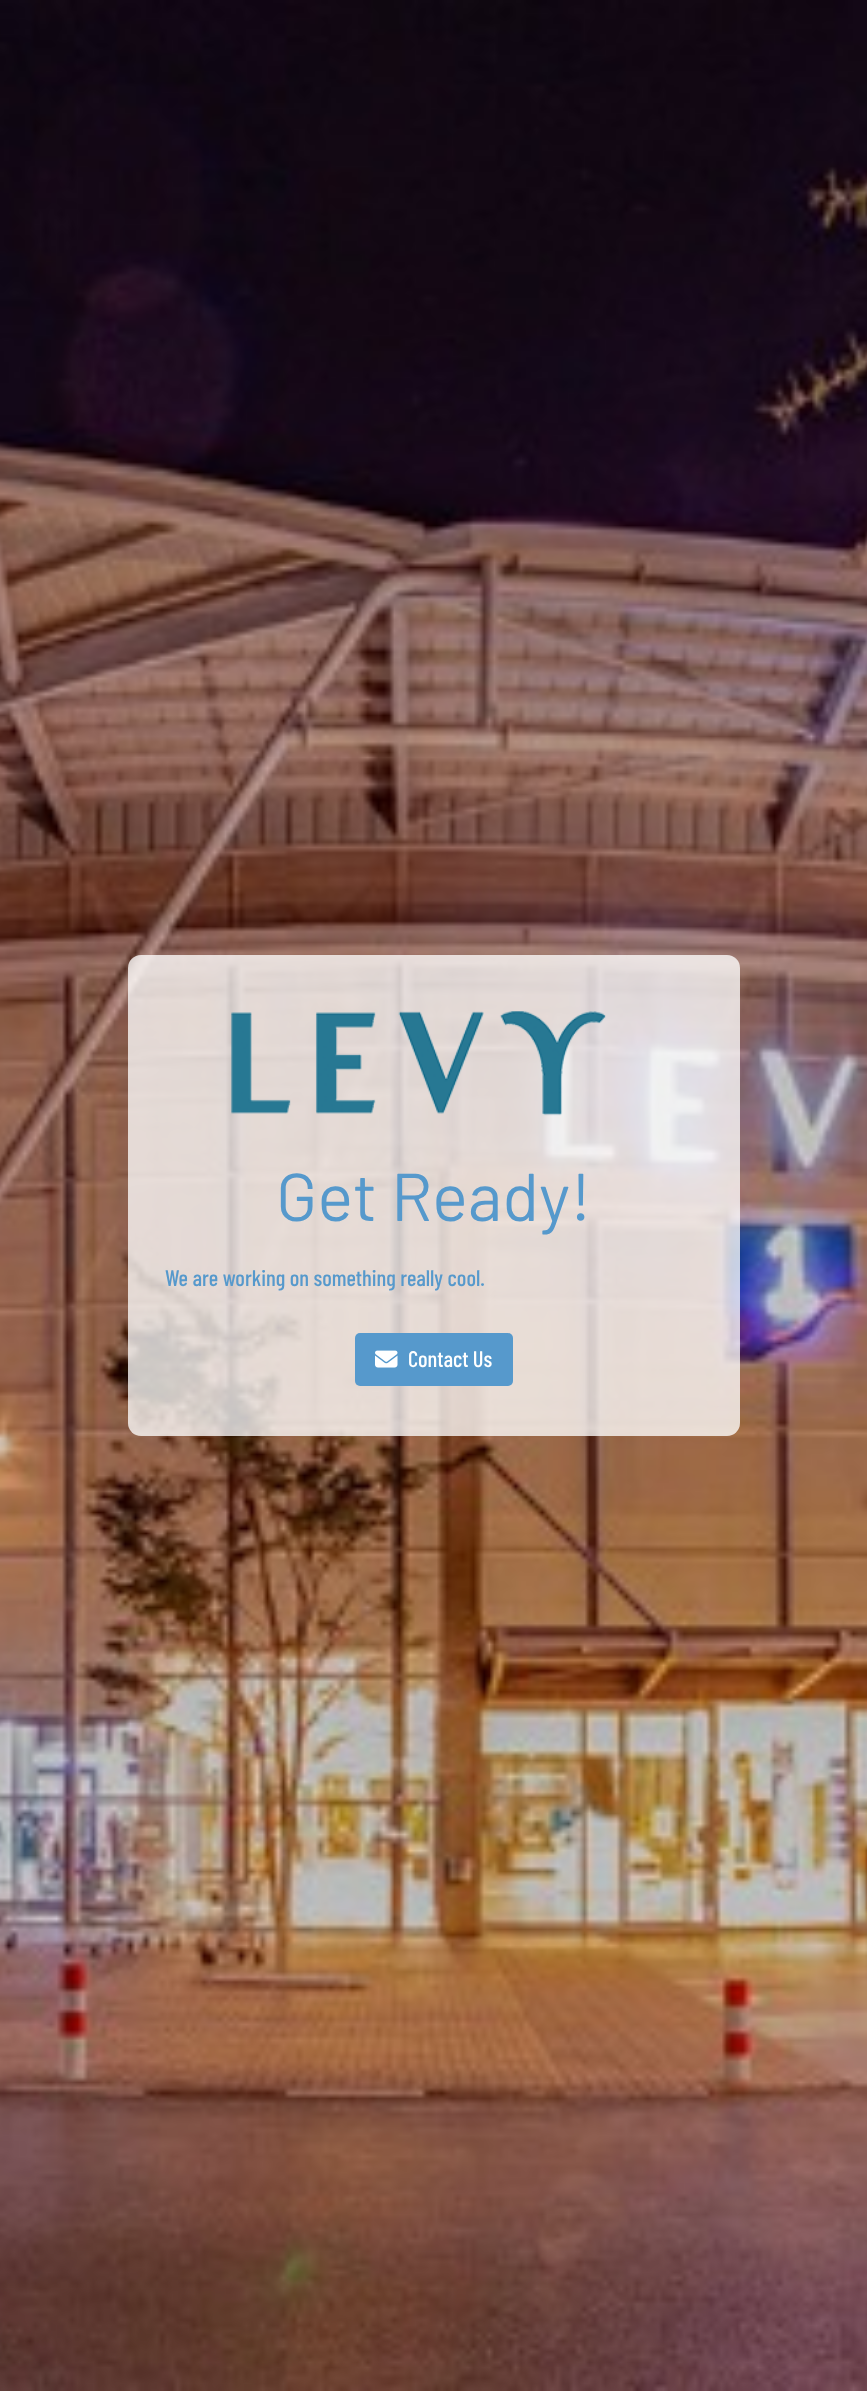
<svg xmlns="http://www.w3.org/2000/svg" width="867" height="2391" viewBox="0 0 867 2391">
  <rect width="100%" height="100%" fill="#fff"/>
  <image x="0" y="0" width="867" height="2391" href="img/1.png"/>
  <rect x="128" y="955" width="612" height="481" rx="13" fill="#ffffffc4"/>
  <image x="231" y="1011" width="375" height="105" href="img/2.png"/>
  <rect x="355" y="1333" width="158" height="53" rx="5" fill="#5699cc"/>
  <image x="375" y="1350" width="23" height="18" href="img/3.png"/>
  <text x="276" y="1221" font-family="Barlow" font-size="67.5" fill="#5699cc">Get Ready!</text>
  <text x="165" y="1286" font-family="Barlow Condensed" font-size="22.5" font-weight="500" fill="#5699cc">We are working on something really cool.</text>
  <text x="408" y="1367" font-family="Barlow Condensed" font-size="22.5" font-weight="500" fill="#fff">Contact Us</text>
</svg>
